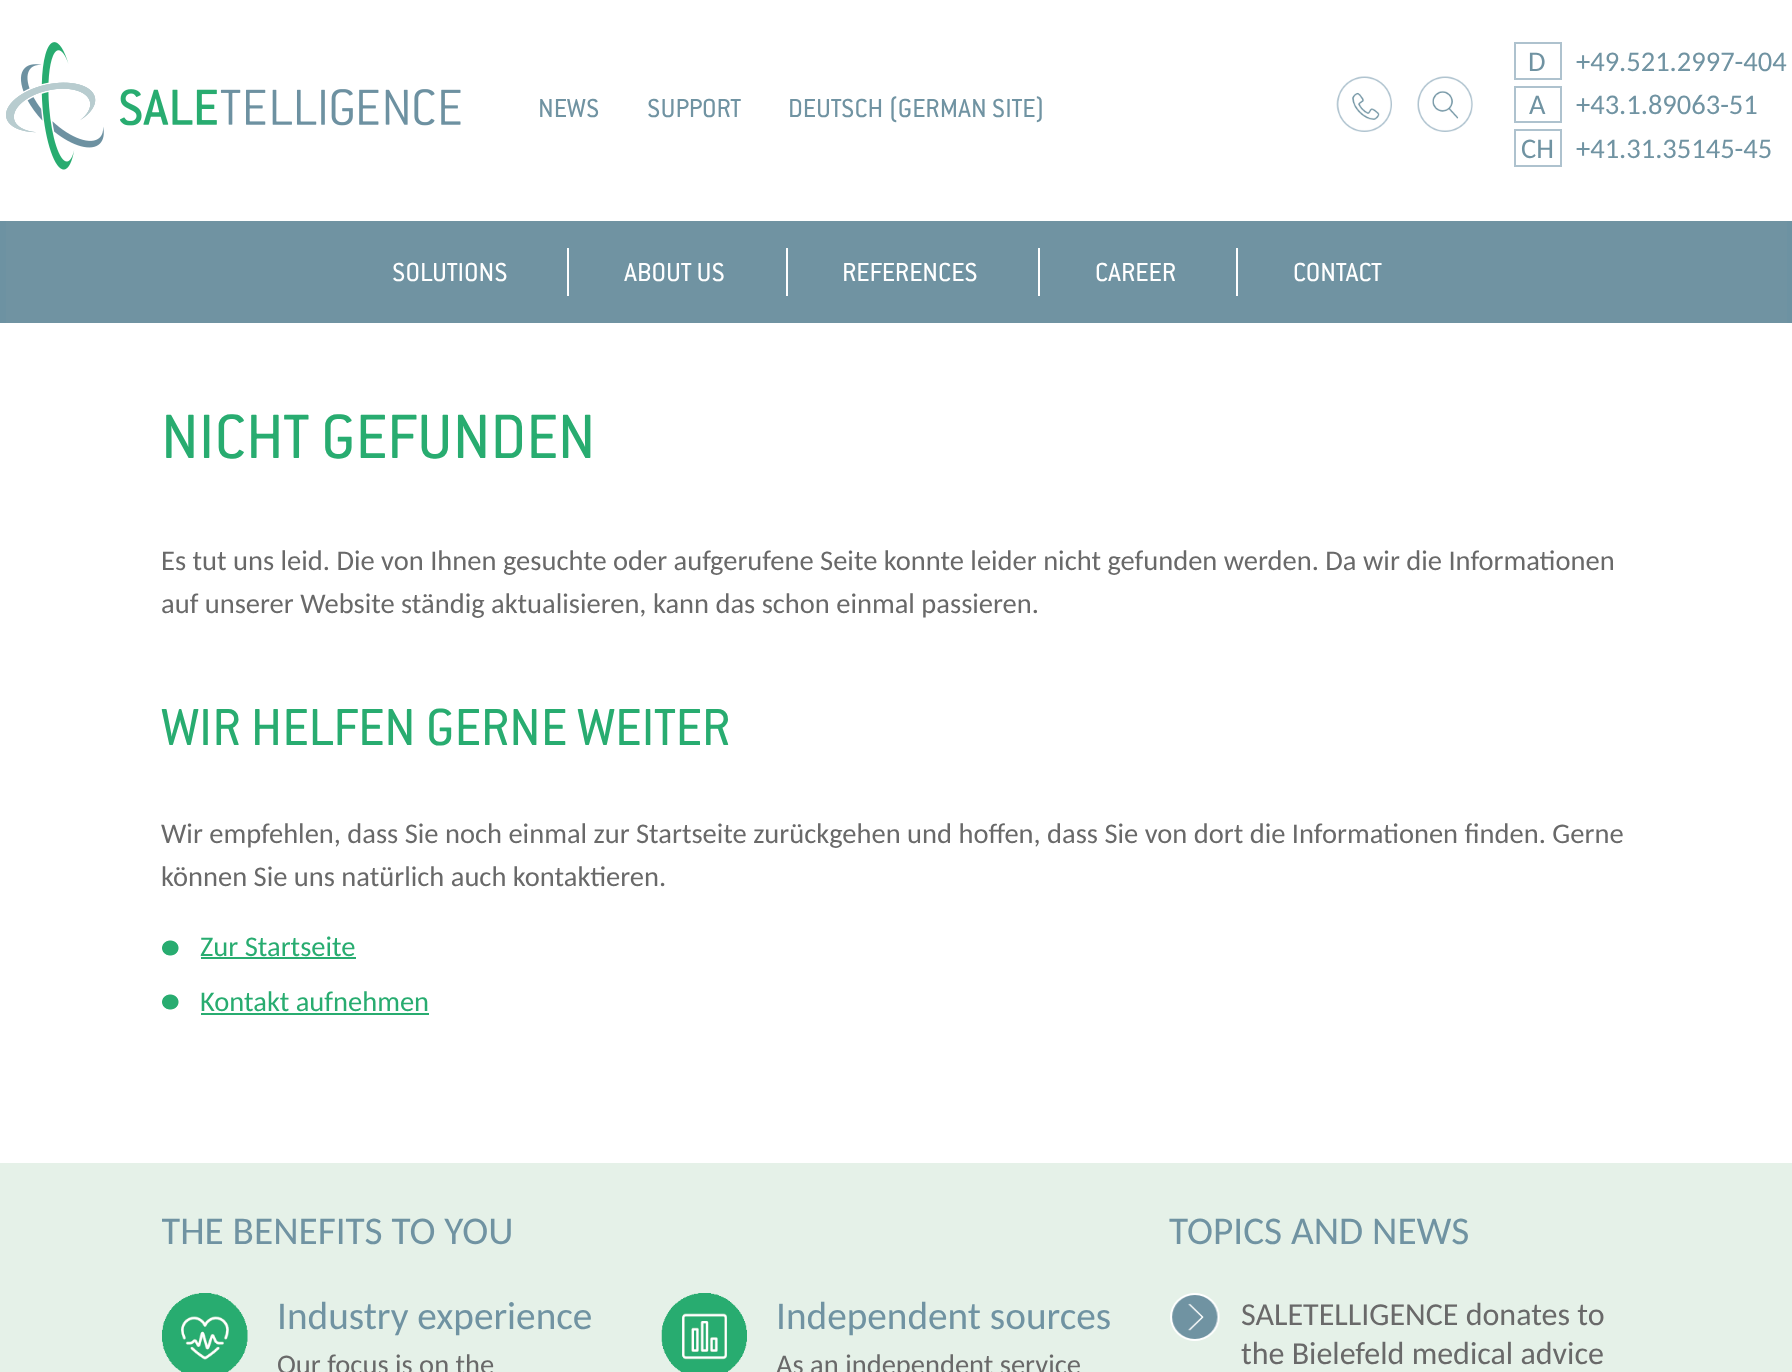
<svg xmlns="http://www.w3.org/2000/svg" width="1792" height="1372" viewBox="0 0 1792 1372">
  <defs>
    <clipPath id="clip1"><path d="M162 1208h996v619H162z"/></clipPath>
  </defs>
  <rect width="100%" height="100%" fill="#fff"/>
  <image x="6" y="42" width="455" height="128" href="img/1.png"/>
  <image x="1336" y="76" width="56" height="56" href="img/2.png"/>
  <image x="1417" y="76" width="56" height="56" href="img/3.png"/>
  <path d="M1515 43h46v36H1515z" fill="none" stroke="#aec2ce" stroke-width="2"/>
  <path d="M1515 87h46v35H1515z" fill="none" stroke="#aec2ce" stroke-width="2"/>
  <path d="M1515 130h46v36H1515z" fill="none" stroke="#aec2ce" stroke-width="2"/>
  <path d="M0 221h1792v102H0z" fill="#6d92a2"/>
  <path d="M6 221h1781v102H6z" fill="#7093a2"/>
  <path d="M567 248h2v48H567z" fill="#fff"/>
  <path d="M786 248h2v48H786z" fill="#fff"/>
  <path d="M1038 248h2v48H1038z" fill="#fff"/>
  <path d="M1236 248h2v48H1236z" fill="#fff"/>
  <image x="162" y="940" width="17" height="16" href="img/4.png"/>
  <path d="M201 957h155v2H201z" fill="#28ac70"/>
  <image x="162" y="994" width="17" height="16" href="img/4.png"/>
  <path d="M201 1013h228v2H201z" fill="#28ac70"/>
  <path d="M0 1163h1792v209H0z" fill="#e5f1e8"/>
  <image x="162" y="1293" width="86" height="79" href="img/5.png"/>
  <image x="661" y="1293" width="86" height="79" href="img/6.png"/>
  <image x="1170" y="1293" width="50" height="48" href="img/7.png"/>
  <g font-family="'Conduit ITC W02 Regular'" font-size="28.5" fill="#7093a2">
    <text x="538" y="117">NEWS</text>
    <text x="647" y="117">SUPPORT</text>
    <text x="788" y="117">DEUTSCH (GERMAN SITE)</text>
  </g>
  <g font-family="Carlito" font-size="28.5" fill="#7093a2">
    <text x="1528" y="71">D</text>
    <text x="1576" y="71">+49.521.2997-404</text>
    <text x="1529" y="114">A</text>
    <text x="1576" y="114">+43.1.89063-51</text>
    <text x="1521" y="158">CH</text>
    <text x="1576" y="158">+41.31.35145-45</text>
  </g>
  <g font-family="'Conduit ITC W02 Regular'" font-size="28.5" fill="#fff">
    <text x="392" y="281">SOLUTIONS</text>
    <text x="624" y="281">ABOUT US</text>
    <text x="842" y="281">REFERENCES</text>
    <text x="1095" y="281">CAREER</text>
    <text x="1293" y="281">CONTACT</text>
  </g>
  <text x="161" y="458" font-family="'Conduit ITC W02 Regular'" font-size="68.5" fill="#28ac70">NICHT GEFUNDEN</text>
  <g font-family="Carlito" font-size="28.5" fill="#696969">
    <text x="161" y="570">Es tut uns leid. Die von Ihnen gesuchte oder aufgerufene Seite konnte leider nicht gefunden werden. Da wir die Informationen</text>
    <text x="161" y="613">auf unserer Website ständig aktualisieren, kann das schon einmal passieren.</text>
  </g>
  <text x="161" y="745" font-family="'Conduit ITC W02 Regular'" font-size="57" fill="#28ac70">WIR HELFEN GERNE WEITER</text>
  <g font-family="Carlito" font-size="28.5" fill="#696969">
    <text x="161" y="843">Wir empfehlen, dass Sie noch einmal zur Startseite zurückgehen und hoffen, dass Sie von dort die Informationen finden. Gerne</text>
    <text x="161" y="886">können Sie uns natürlich auch kontaktieren.</text>
  </g>
  <g font-family="Carlito" font-size="28.5" fill="#28ac70">
    <text x="200" y="956">Zur Startseite</text>
    <text x="200" y="1011">Kontakt aufnehmen</text>
  </g>
  <g clip-path="url(#clip1)">
    <text x="161" y="1244" font-family="Carlito" font-size="39.25" fill="#7093a2">THE BENEFITS TO YOU</text>
  </g>
  <text x="277" y="1329" font-family="Carlito" font-size="39.25" fill="#7093a2">Industry experience</text>
  <text x="277" y="1374" font-family="Carlito" font-size="28.5" fill="#696969">Our focus is on the</text>
  <text x="776" y="1329" font-family="Carlito" font-size="39.25" fill="#7093a2">Independent sources</text>
  <text x="776" y="1374" font-family="Carlito" font-size="28.5" fill="#696969">As an independent service</text>
  <text x="1169" y="1244" font-family="Carlito" font-size="39.25" fill="#7093a2">TOPICS AND NEWS</text>
  <g font-family="Carlito" font-size="32" fill="#696969">
    <text x="1241" y="1325">SALETELLIGENCE donates to</text>
    <text x="1241" y="1364">the Bielefeld medical advice</text>
  </g>
</svg>
